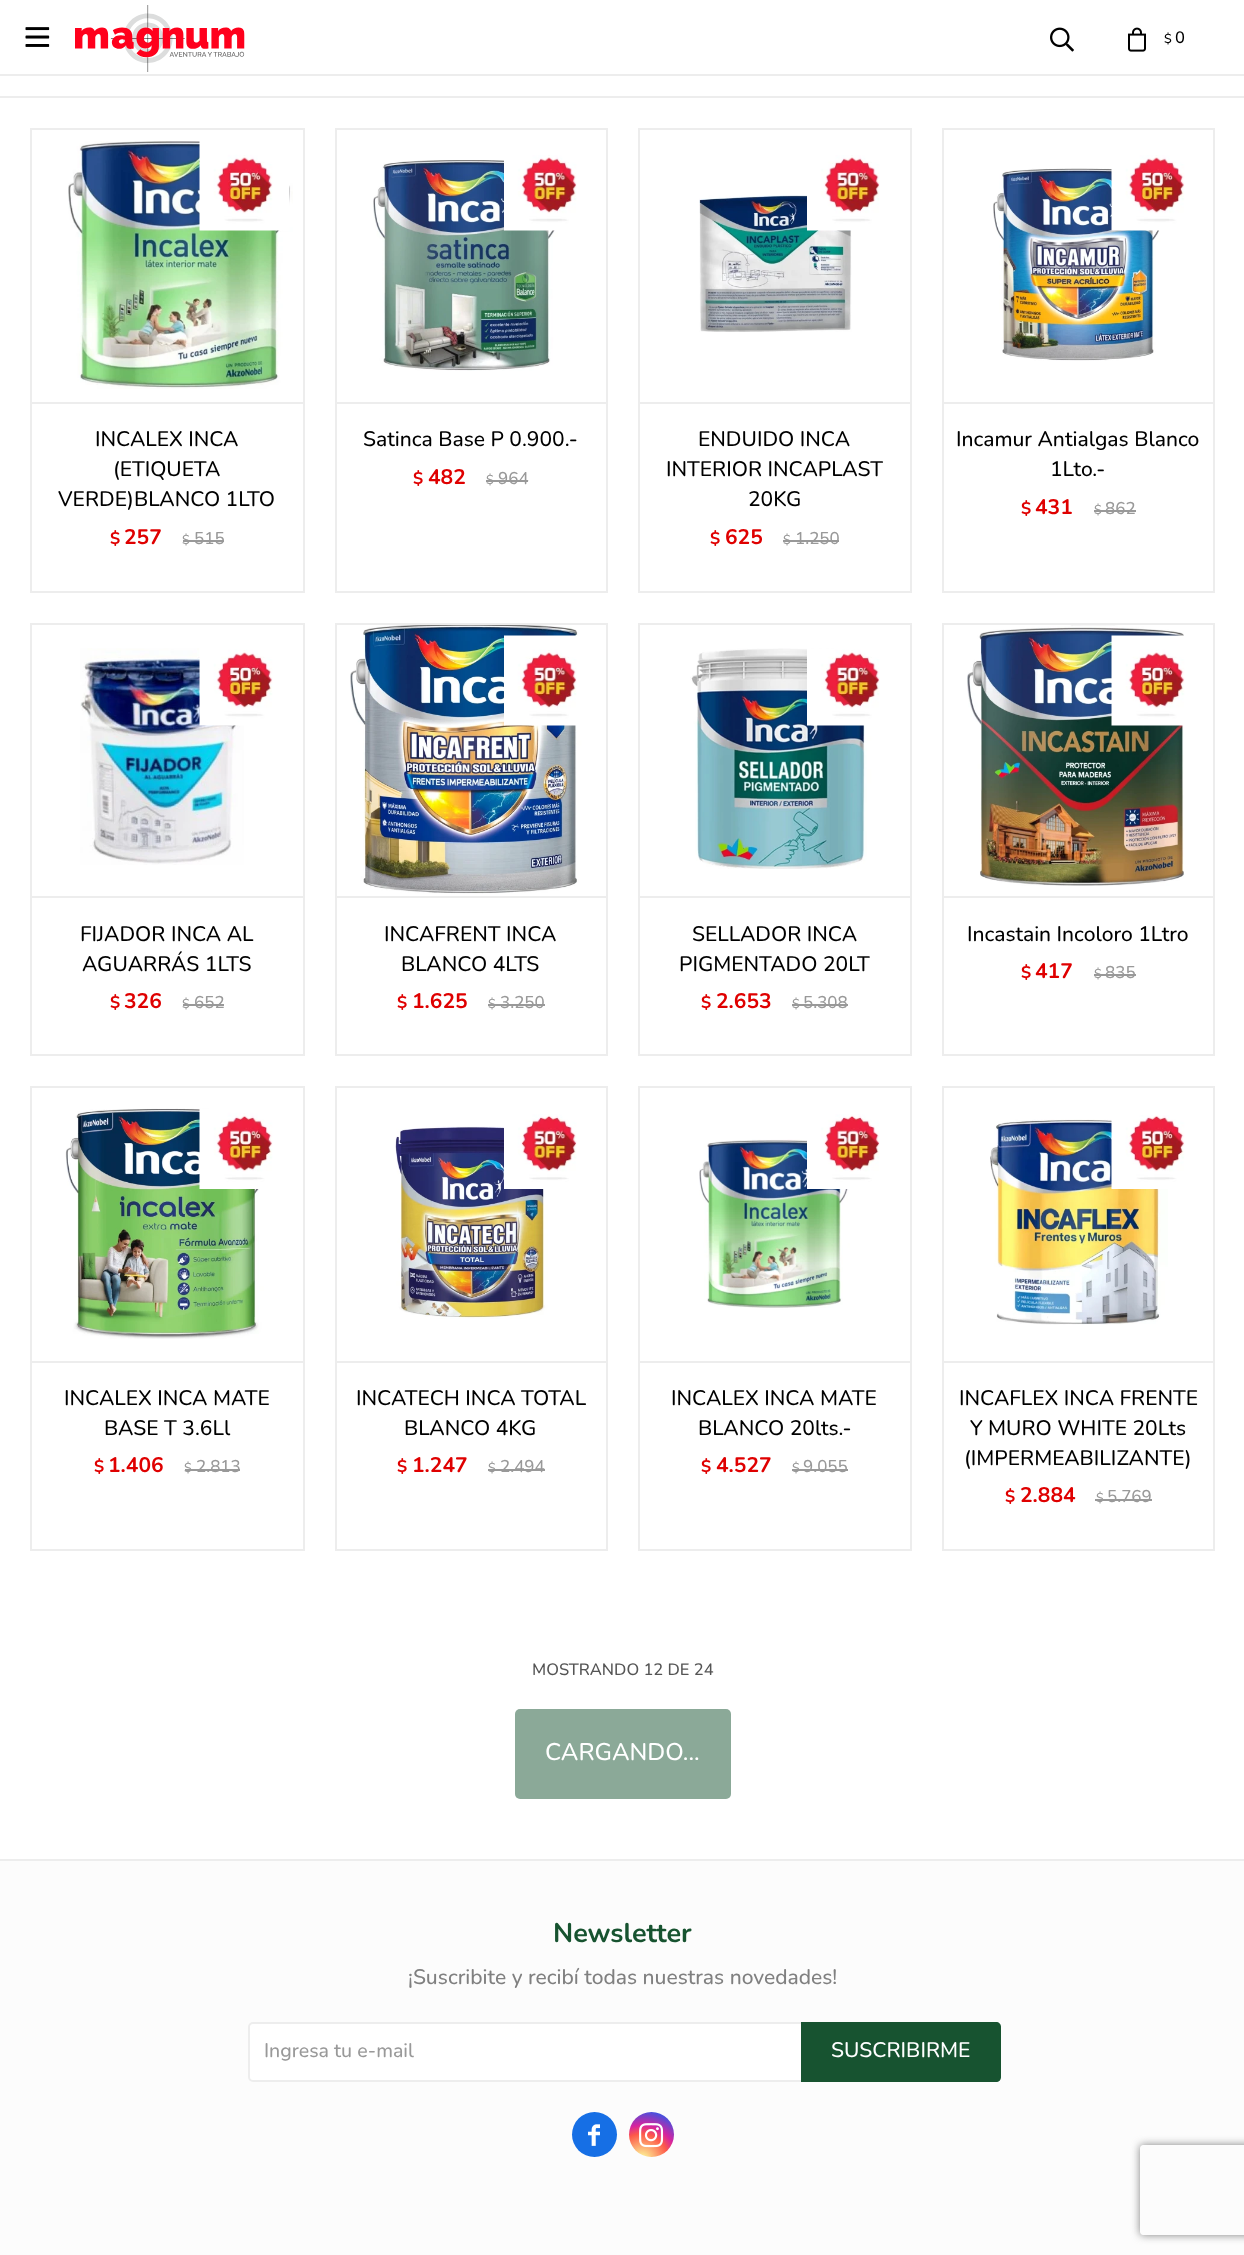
<svg xmlns="http://www.w3.org/2000/svg" width="1244" height="2255" viewBox="0 0 1244 2255">
  <defs>
    <radialGradient id="g1" gradientUnits="userSpaceOnUse" cx="642" cy="2160" r="58"><stop offset="0" stop-color="#fdf497"/><stop offset="0.05" stop-color="#fdf497"/><stop offset="0.45" stop-color="#fd5949"/><stop offset="0.6" stop-color="#d6249f"/><stop offset="0.9" stop-color="#285aeb"/></radialGradient>
    <clipPath id="clip1"><path d="M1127 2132H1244V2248H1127ZM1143 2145H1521C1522.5 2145 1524 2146.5 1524 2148V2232C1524 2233.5 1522.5 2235 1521 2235H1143C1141.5 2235 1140 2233.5 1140 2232V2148C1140 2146.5 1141.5 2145 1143 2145Z" clip-rule="evenodd"/></clipPath>
  </defs>
  <rect width="100%" height="100%" fill="#fff"/>
  <image x="25" y="27" width="25" height="20" href="img/1.png"/>
  <image x="75" y="5" width="170" height="67" href="img/2.png"/>
  <image x="1050" y="27" width="24" height="25" href="img/3.png"/>
  <image x="1128" y="27" width="18" height="25" href="img/4.png"/>
  <path d="M0 74h1244v2H0z" fill="#ededed"/>
  <path d="M0 96h1244v2H0z" fill="#ededed"/>
  <image x="68" y="141" width="225" height="248" href="img/5.png"/>
  <image x="199" y="141" width="91" height="90" href="img/6.png"/>
  <path d="M30 402h275v2H30z" fill="#ededed"/>
  <path d="M183 540h41v2H183z" fill="#999"/>
  <path d="M31 129h273v463H31z" fill="none" stroke="#ededed" stroke-width="2"/>
  <image x="373" y="160" width="187" height="211" href="img/8.png"/>
  <image x="504" y="155" width="73" height="76" href="img/7.png"/>
  <path d="M335 402h273v2H335z" fill="#ededed"/>
  <path d="M486 480h42v2H486z" fill="#999"/>
  <path d="M336 129h271v463H336z" fill="none" stroke="#ededed" stroke-width="2"/>
  <image x="699" y="195" width="153" height="137" href="img/10.png"/>
  <image x="807" y="155" width="73" height="76" href="img/9.png"/>
  <path d="M638 402h274v2H638z" fill="#ededed"/>
  <path d="M783 540h56v2H783z" fill="#999"/>
  <path d="M639 129h272v463H639z" fill="none" stroke="#ededed" stroke-width="2"/>
  <image x="993" y="168" width="171" height="193" href="img/12.png"/>
  <image x="1111" y="155" width="74" height="76" href="img/11.png"/>
  <path d="M942 402h273v2H942z" fill="#ededed"/>
  <path d="M1094 510h42v2H1094z" fill="#999"/>
  <path d="M943 129h271v463H943z" fill="none" stroke="#ededed" stroke-width="2"/>
  <image x="80" y="648" width="164" height="217" href="img/13.png"/>
  <image x="199" y="648" width="74" height="78" href="img/14.png"/>
  <path d="M30 896h275v2H30z" fill="#ededed"/>
  <path d="M183 1004h41v2H183z" fill="#999"/>
  <path d="M31 624h273v431H31z" fill="none" stroke="#ededed" stroke-width="2"/>
  <image x="350" y="625" width="241" height="269" href="img/15.png"/>
  <image x="504" y="635" width="87" height="91" href="img/16.png"/>
  <path d="M335 896h273v2H335z" fill="#ededed"/>
  <path d="M488 1004h57v2H488z" fill="#999"/>
  <path d="M336 624h271v431H336z" fill="none" stroke="#ededed" stroke-width="2"/>
  <image x="690" y="648" width="183" height="221" href="img/17.png"/>
  <image x="807" y="649" width="73" height="77" href="img/18.png"/>
  <path d="M638 896h274v2H638z" fill="#ededed"/>
  <path d="M792 1004h56v2H792z" fill="#999"/>
  <path d="M639 624h272v431H639z" fill="none" stroke="#ededed" stroke-width="2"/>
  <image x="967" y="625" width="231" height="261" href="img/19.png"/>
  <image x="1111" y="635" width="87" height="91" href="img/20.png"/>
  <path d="M942 896h273v2H942z" fill="#ededed"/>
  <path d="M1094 974h42v2H1094z" fill="#999"/>
  <path d="M943 624h271v431H943z" fill="none" stroke="#ededed" stroke-width="2"/>
  <image x="65" y="1108" width="203" height="231" href="img/21.png"/>
  <image x="199" y="1109" width="74" height="80" href="img/22.png"/>
  <path d="M30 1361h275v2H30z" fill="#ededed"/>
  <path d="M185 1469h55v2H185z" fill="#999"/>
  <path d="M31 1087h273v463H31z" fill="none" stroke="#ededed" stroke-width="2"/>
  <image x="395" y="1126" width="155" height="193" href="img/24.png"/>
  <image x="504" y="1114" width="73" height="75" href="img/23.png"/>
  <path d="M335 1361h273v2H335z" fill="#ededed"/>
  <path d="M488 1469h57v2H488z" fill="#999"/>
  <path d="M336 1087h271v463H336z" fill="none" stroke="#ededed" stroke-width="2"/>
  <image x="699" y="1139" width="151" height="169" href="img/26.png"/>
  <image x="807" y="1114" width="73" height="75" href="img/25.png"/>
  <path d="M638 1361h274v2H638z" fill="#ededed"/>
  <path d="M792 1469h56v2H792z" fill="#999"/>
  <path d="M639 1087h272v463H639z" fill="none" stroke="#ededed" stroke-width="2"/>
  <image x="990" y="1119" width="178" height="206" href="img/28.png"/>
  <image x="1111" y="1115" width="74" height="74" href="img/27.png"/>
  <path d="M942 1361h273v2H942z" fill="#ededed"/>
  <path d="M1095 1499h57v2H1095z" fill="#999"/>
  <path d="M943 1087h271v463H943z" fill="none" stroke="#ededed" stroke-width="2"/>
  <rect x="515" y="1709" width="216" height="90" rx="5" fill="#8ba998"/>
  <path d="M0 1861h1244v394H0z" fill="#fcfcfc"/>
  <path d="M0 1859h1244v2H0z" fill="#ededed"/>
  <rect x="249" y="2023" width="748" height="58" rx="4" fill="#fff" stroke="#ededed" stroke-width="2"/>
  <path d="M801 2022H996C999 2022 1001 2024 1001 2027V2077C1001 2080 999 2082 996 2082H801Z" fill="#175330"/>
  <circle cx="594.5" cy="2134.5" r="22.5" fill="#166fe5"/>
  <image x="588" y="2124" width="12" height="22" href="img/29.png"/>
  <circle cx="651.5" cy="2134.5" r="22.5" fill="url(#g1)"/>
  <image x="639" y="2123" width="25" height="25" href="img/30.png"/>
  <g clip-path="url(#clip1)">
    <rect x="1140" y="2145" width="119" height="90" rx="3" fill="#808080" filter="blur(4px)"/>
  </g>
  <text x="1164" y="43" font-family="Nunito" font-size="13" font-weight="500" fill="#000">$</text>
  <text x="1175" y="43" font-family="Nunito" font-size="16.5" font-weight="500" fill="#000">0</text>
  <g font-family="Nunito" font-size="21" font-weight="500" fill="#000">
    <text x="95" y="446">INCALEX INCA</text>
    <text x="113" y="476">(ETIQUETA</text>
    <text x="58" y="506">VERDE)BLANCO 1LTO</text>
  </g>
  <text x="110" y="544" font-family="Nunito" font-size="17" font-weight="bold" fill="#df0000">$</text>
  <text x="124" y="544" font-family="Nunito" font-size="21" font-weight="bold" fill="#df0000">257</text>
  <text x="182" y="544" font-family="Nunito" font-size="13" font-weight="500" fill="#999">$</text>
  <text x="194" y="544" font-family="Nunito" font-size="17" font-weight="500" fill="#999">515</text>
  <text x="363" y="446" font-family="Nunito" font-size="21" font-weight="500" fill="#000">Satinca Base P 0.900.-</text>
  <text x="413" y="484" font-family="Nunito" font-size="17" font-weight="bold" fill="#df0000">$</text>
  <text x="428" y="484" font-family="Nunito" font-size="21" font-weight="bold" fill="#df0000">482</text>
  <text x="486" y="484" font-family="Nunito" font-size="13" font-weight="500" fill="#999">$</text>
  <text x="498" y="484" font-family="Nunito" font-size="17" font-weight="500" fill="#999">964</text>
  <g font-family="Nunito" font-size="21" font-weight="500" fill="#000">
    <text x="698" y="446">ENDUIDO INCA</text>
    <text x="666" y="476">INTERIOR INCAPLAST</text>
    <text x="748" y="506">20KG</text>
  </g>
  <text x="710" y="544" font-family="Nunito" font-size="17" font-weight="bold" fill="#df0000">$</text>
  <text x="725" y="544" font-family="Nunito" font-size="21" font-weight="bold" fill="#df0000">625</text>
  <text x="783" y="544" font-family="Nunito" font-size="13" font-weight="500" fill="#999">$</text>
  <text x="795" y="544" font-family="Nunito" font-size="17" font-weight="500" fill="#999">1.250</text>
  <g font-family="Nunito" font-size="21" font-weight="500" fill="#000">
    <text x="956" y="446">Incamur Antialgas Blanco</text>
    <text x="1050" y="476">1Lto.-</text>
  </g>
  <text x="1021" y="514" font-family="Nunito" font-size="17" font-weight="bold" fill="#df0000">$</text>
  <text x="1035" y="514" font-family="Nunito" font-size="21" font-weight="bold" fill="#df0000">431</text>
  <text x="1094" y="514" font-family="Nunito" font-size="13" font-weight="500" fill="#999">$</text>
  <text x="1105" y="514" font-family="Nunito" font-size="17" font-weight="500" fill="#999">862</text>
  <g font-family="Nunito" font-size="21" font-weight="500" fill="#000">
    <text x="80" y="941">FIJADOR INCA AL</text>
    <text x="82" y="971">AGUARRÁS 1LTS</text>
  </g>
  <text x="110" y="1008" font-family="Nunito" font-size="17" font-weight="bold" fill="#df0000">$</text>
  <text x="124" y="1008" font-family="Nunito" font-size="21" font-weight="bold" fill="#df0000">326</text>
  <text x="182" y="1008" font-family="Nunito" font-size="13" font-weight="500" fill="#999">$</text>
  <text x="194" y="1008" font-family="Nunito" font-size="17" font-weight="500" fill="#999">652</text>
  <g font-family="Nunito" font-size="21" font-weight="500" fill="#000">
    <text x="384" y="941">INCAFRENT INCA</text>
    <text x="401" y="971">BLANCO 4LTS</text>
  </g>
  <text x="397" y="1008" font-family="Nunito" font-size="17" font-weight="bold" fill="#df0000">$</text>
  <text x="412" y="1008" font-family="Nunito" font-size="21" font-weight="bold" fill="#df0000">1.625</text>
  <text x="488" y="1008" font-family="Nunito" font-size="13" font-weight="500" fill="#999">$</text>
  <text x="500" y="1008" font-family="Nunito" font-size="17" font-weight="500" fill="#999">3.250</text>
  <g font-family="Nunito" font-size="21" font-weight="500" fill="#000">
    <text x="692" y="941">SELLADOR INCA</text>
    <text x="679" y="971">PIGMENTADO 20LT</text>
  </g>
  <text x="701" y="1008" font-family="Nunito" font-size="17" font-weight="bold" fill="#df0000">$</text>
  <text x="716" y="1008" font-family="Nunito" font-size="21" font-weight="bold" fill="#df0000">2.653</text>
  <text x="792" y="1008" font-family="Nunito" font-size="13" font-weight="500" fill="#999">$</text>
  <text x="803" y="1008" font-family="Nunito" font-size="17" font-weight="500" fill="#999">5.308</text>
  <text x="967" y="941" font-family="Nunito" font-size="21" font-weight="500" fill="#000">Incastain Incoloro 1Ltro</text>
  <text x="1021" y="978" font-family="Nunito" font-size="17" font-weight="bold" fill="#df0000">$</text>
  <text x="1035" y="978" font-family="Nunito" font-size="21" font-weight="bold" fill="#df0000">417</text>
  <text x="1094" y="978" font-family="Nunito" font-size="13" font-weight="500" fill="#999">$</text>
  <text x="1105" y="978" font-family="Nunito" font-size="17" font-weight="500" fill="#999">835</text>
  <g font-family="Nunito" font-size="21" font-weight="500" fill="#000">
    <text x="64" y="1405">INCALEX INCA MATE</text>
    <text x="104" y="1435">BASE T 3.6Ll</text>
  </g>
  <text x="94" y="1472" font-family="Nunito" font-size="17" font-weight="bold" fill="#df0000">$</text>
  <text x="108" y="1472" font-family="Nunito" font-size="21" font-weight="bold" fill="#df0000">1.406</text>
  <text x="184" y="1472" font-family="Nunito" font-size="13" font-weight="500" fill="#999">$</text>
  <text x="196" y="1472" font-family="Nunito" font-size="17" font-weight="500" fill="#999">2.813</text>
  <g font-family="Nunito" font-size="21" font-weight="500" fill="#000">
    <text x="356" y="1405">INCATECH INCA TOTAL</text>
    <text x="404" y="1435">BLANCO 4KG</text>
  </g>
  <text x="397" y="1472" font-family="Nunito" font-size="17" font-weight="bold" fill="#df0000">$</text>
  <text x="412" y="1472" font-family="Nunito" font-size="21" font-weight="bold" fill="#df0000">1.247</text>
  <text x="488" y="1472" font-family="Nunito" font-size="13" font-weight="500" fill="#999">$</text>
  <text x="500" y="1472" font-family="Nunito" font-size="17" font-weight="500" fill="#999">2.494</text>
  <g font-family="Nunito" font-size="21" font-weight="500" fill="#000">
    <text x="671" y="1405">INCALEX INCA MATE</text>
    <text x="698" y="1435">BLANCO 20lts.-</text>
  </g>
  <text x="701" y="1472" font-family="Nunito" font-size="17" font-weight="bold" fill="#df0000">$</text>
  <text x="716" y="1472" font-family="Nunito" font-size="21" font-weight="bold" fill="#df0000">4.527</text>
  <text x="792" y="1472" font-family="Nunito" font-size="13" font-weight="500" fill="#999">$</text>
  <text x="803" y="1472" font-family="Nunito" font-size="17" font-weight="500" fill="#999">9.055</text>
  <g font-family="Nunito" font-size="21" font-weight="500" fill="#000">
    <text x="959" y="1405">INCAFLEX INCA FRENTE</text>
    <text x="970" y="1435">Y MURO WHITE 20Lts</text>
    <text x="964" y="1465">(IMPERMEABILIZANTE)</text>
  </g>
  <text x="1005" y="1502" font-family="Nunito" font-size="17" font-weight="bold" fill="#df0000">$</text>
  <text x="1020" y="1502" font-family="Nunito" font-size="21" font-weight="bold" fill="#df0000">2.884</text>
  <text x="1096" y="1502" font-family="Nunito" font-size="13" font-weight="500" fill="#999">$</text>
  <text x="1107" y="1502" font-family="Nunito" font-size="17" font-weight="500" fill="#999">5.769</text>
  <text x="532" y="1675" font-family="Nunito" font-size="16.5" font-weight="500" fill="#555">MOSTRANDO 12 DE 24</text>
  <text x="545" y="1760" font-family="Nunito" font-size="24" font-weight="500" fill="#fff">CARGANDO...</text>
  <text x="553" y="1942" font-family="Nunito" font-size="27" font-weight="bold" fill="#175330">Newsletter</text>
  <text x="408" y="1984" font-family="Nunito" font-size="21" font-weight="500" fill="#808080">¡Suscribite y recibí todas nuestras novedades!</text>
  <text x="264" y="2057" font-family="Nunito" font-size="19.5" font-weight="500" fill="#999">Ingresa tu e-mail</text>
  <text x="831" y="2057" font-family="Nunito" font-size="21" font-weight="500" fill="#fff">SUSCRIBIRME</text>
</svg>
